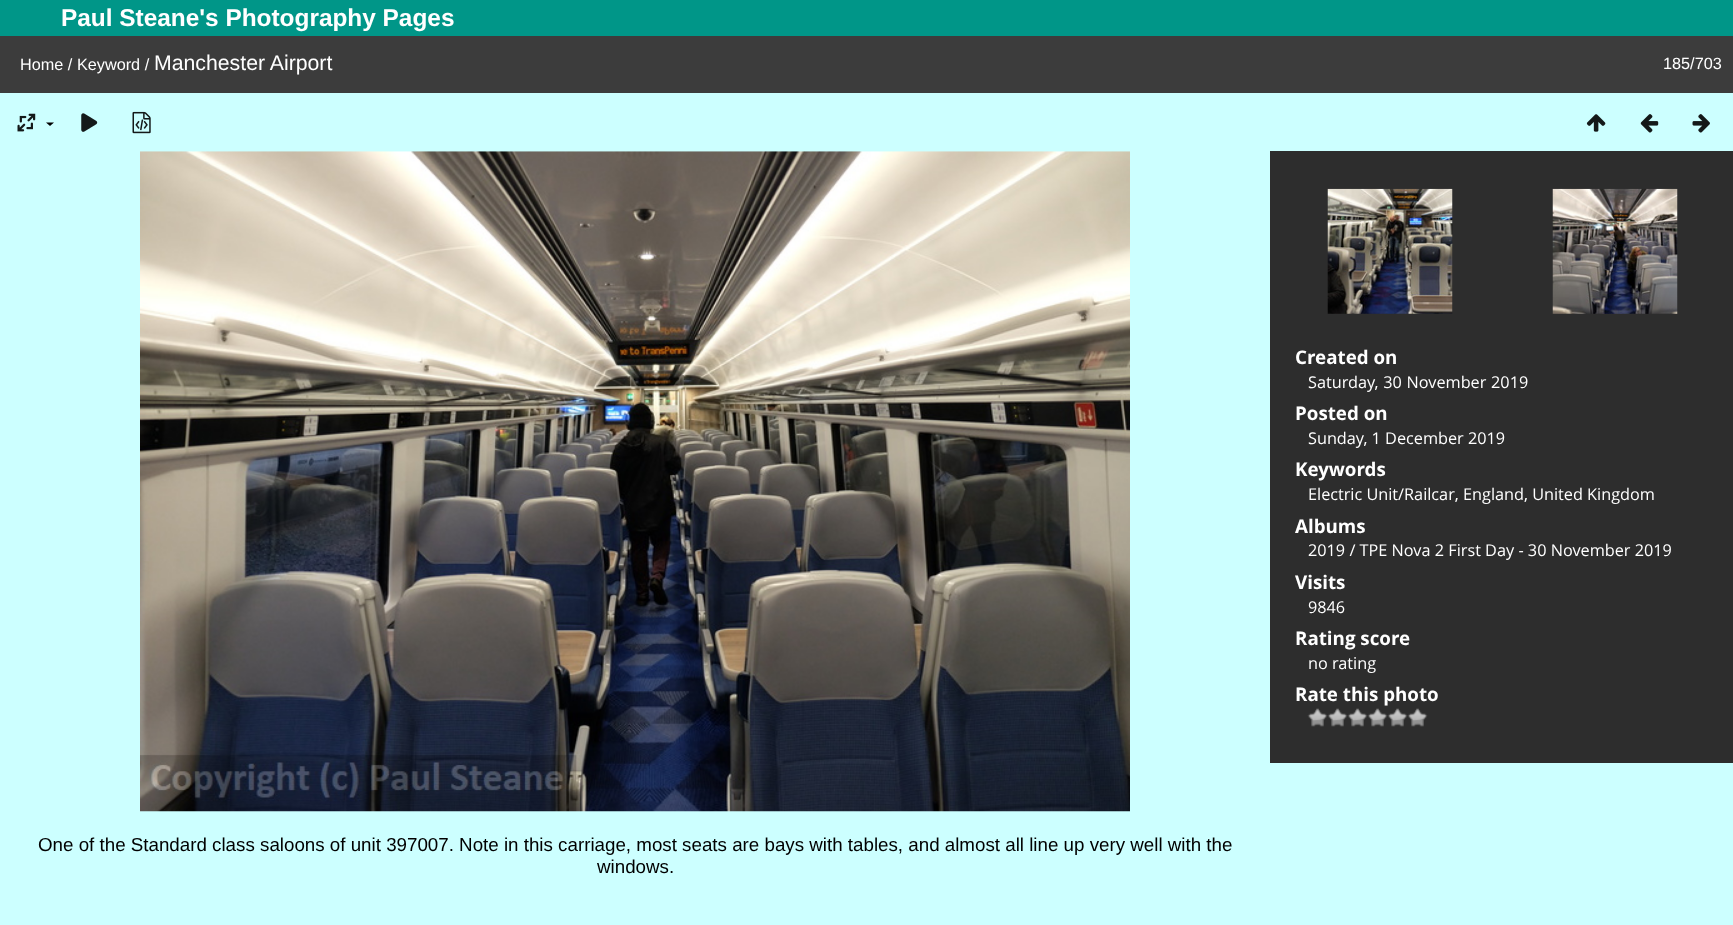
<svg xmlns="http://www.w3.org/2000/svg" width="1733" height="925" viewBox="0 0 1733 925">
  <rect width="100%" height="100%" fill="#cff"/>
  <path d="M0 0h1733v36H0z" fill="#009688"/>
  <path d="M0 36h1733v57H0z" fill="#3c3c3c"/>
  <image x="17" y="113" width="19" height="19" href="img/1.png"/>
  <path d="M46 122.5H54L50 126Z" fill="#000"/>
  <image x="81" y="113" width="17" height="19" href="img/2.png"/>
  <image x="132" y="111" width="19" height="23" href="img/3.png"/>
  <image x="1586" y="114" width="20" height="18" href="img/4.png"/>
  <image x="1640" y="114" width="19" height="19" href="img/5.png"/>
  <image x="1692" y="114" width="18" height="19" href="img/6.png"/>
  <path d="M1270 151h463v612H1270z" fill="#2d2d2d"/>
  <image x="1327" y="188" width="126" height="126" href="img/7.png"/>
  <image x="1552" y="188" width="126" height="126" href="img/8.png"/>
  <image x="1307" y="708" width="21" height="19" href="img/9.png"/>
  <image x="1327" y="708" width="21" height="19" href="img/10.png"/>
  <image x="1347" y="708" width="21" height="19" href="img/10.png"/>
  <image x="1367" y="708" width="21" height="19" href="img/11.png"/>
  <image x="1387" y="708" width="21" height="19" href="img/11.png"/>
  <image x="1407" y="708" width="21" height="19" href="img/11.png"/>
  <image x="140" y="151" width="990" height="661" href="img/12.png"/>
  <text x="61" y="26" font-family="Liberation Sans" font-size="24.4" font-weight="bold" fill="#fff">Paul Steane's Photography Pages</text>
  <text x="20" y="70" font-family="Liberation Sans" font-size="16.25" fill="#fff">Home / Keyword /</text>
  <text x="154" y="70" font-family="Liberation Sans" font-size="21.25" fill="#fff">Manchester Airport</text>
  <text x="1663" y="69" font-family="Liberation Sans" font-size="16.25" fill="#fff">185/703</text>
  <text x="1295" y="364" font-family="Open Sans" font-size="18.75" font-weight="bold" fill="#fff">Created on</text>
  <text x="1308" y="388" word-spacing="0.5" font-family="Open Sans" font-size="16.25" fill="#fff">Saturday, 30 November 2019</text>
  <text x="1295" y="420" font-family="Open Sans" font-size="18.75" font-weight="bold" fill="#fff">Posted on</text>
  <text x="1308" y="444" font-family="Open Sans" font-size="16.25" fill="#fff">Sunday, 1 December 2019</text>
  <text x="1295" y="476" font-family="Open Sans" font-size="18.75" font-weight="bold" fill="#fff">Keywords</text>
  <text x="1308" y="500" font-family="Open Sans" font-size="16.25" fill="#fff">Electric Unit/Railcar, England, United Kingdom</text>
  <text x="1295" y="533" font-family="Open Sans" font-size="18.75" font-weight="bold" fill="#fff">Albums</text>
  <text x="1308" y="556" font-family="Open Sans" font-size="16.25" fill="#fff">2019 / TPE Nova 2 First Day - 30 November 2019</text>
  <text x="1295" y="589" font-family="Open Sans" font-size="18.75" font-weight="bold" fill="#fff">Visits</text>
  <text x="1308" y="613" font-family="Open Sans" font-size="16.25" fill="#fff">9846</text>
  <text x="1295" y="645" font-family="Open Sans" font-size="18.75" font-weight="bold" fill="#fff">Rating score</text>
  <text x="1308" y="669" font-family="Open Sans" font-size="16.25" fill="#fff">no rating</text>
  <text x="1295" y="701" font-family="Open Sans" font-size="18.75" font-weight="bold" fill="#fff">Rate this photo</text>
  <g font-family="Liberation Sans" font-size="18.75" fill="#000">
    <text x="38" y="851">One of the Standard class saloons of unit 397007. Note in this carriage, most seats are bays with tables, and almost all line up very well with the</text>
    <text x="597" y="873">windows.</text>
  </g>
</svg>
